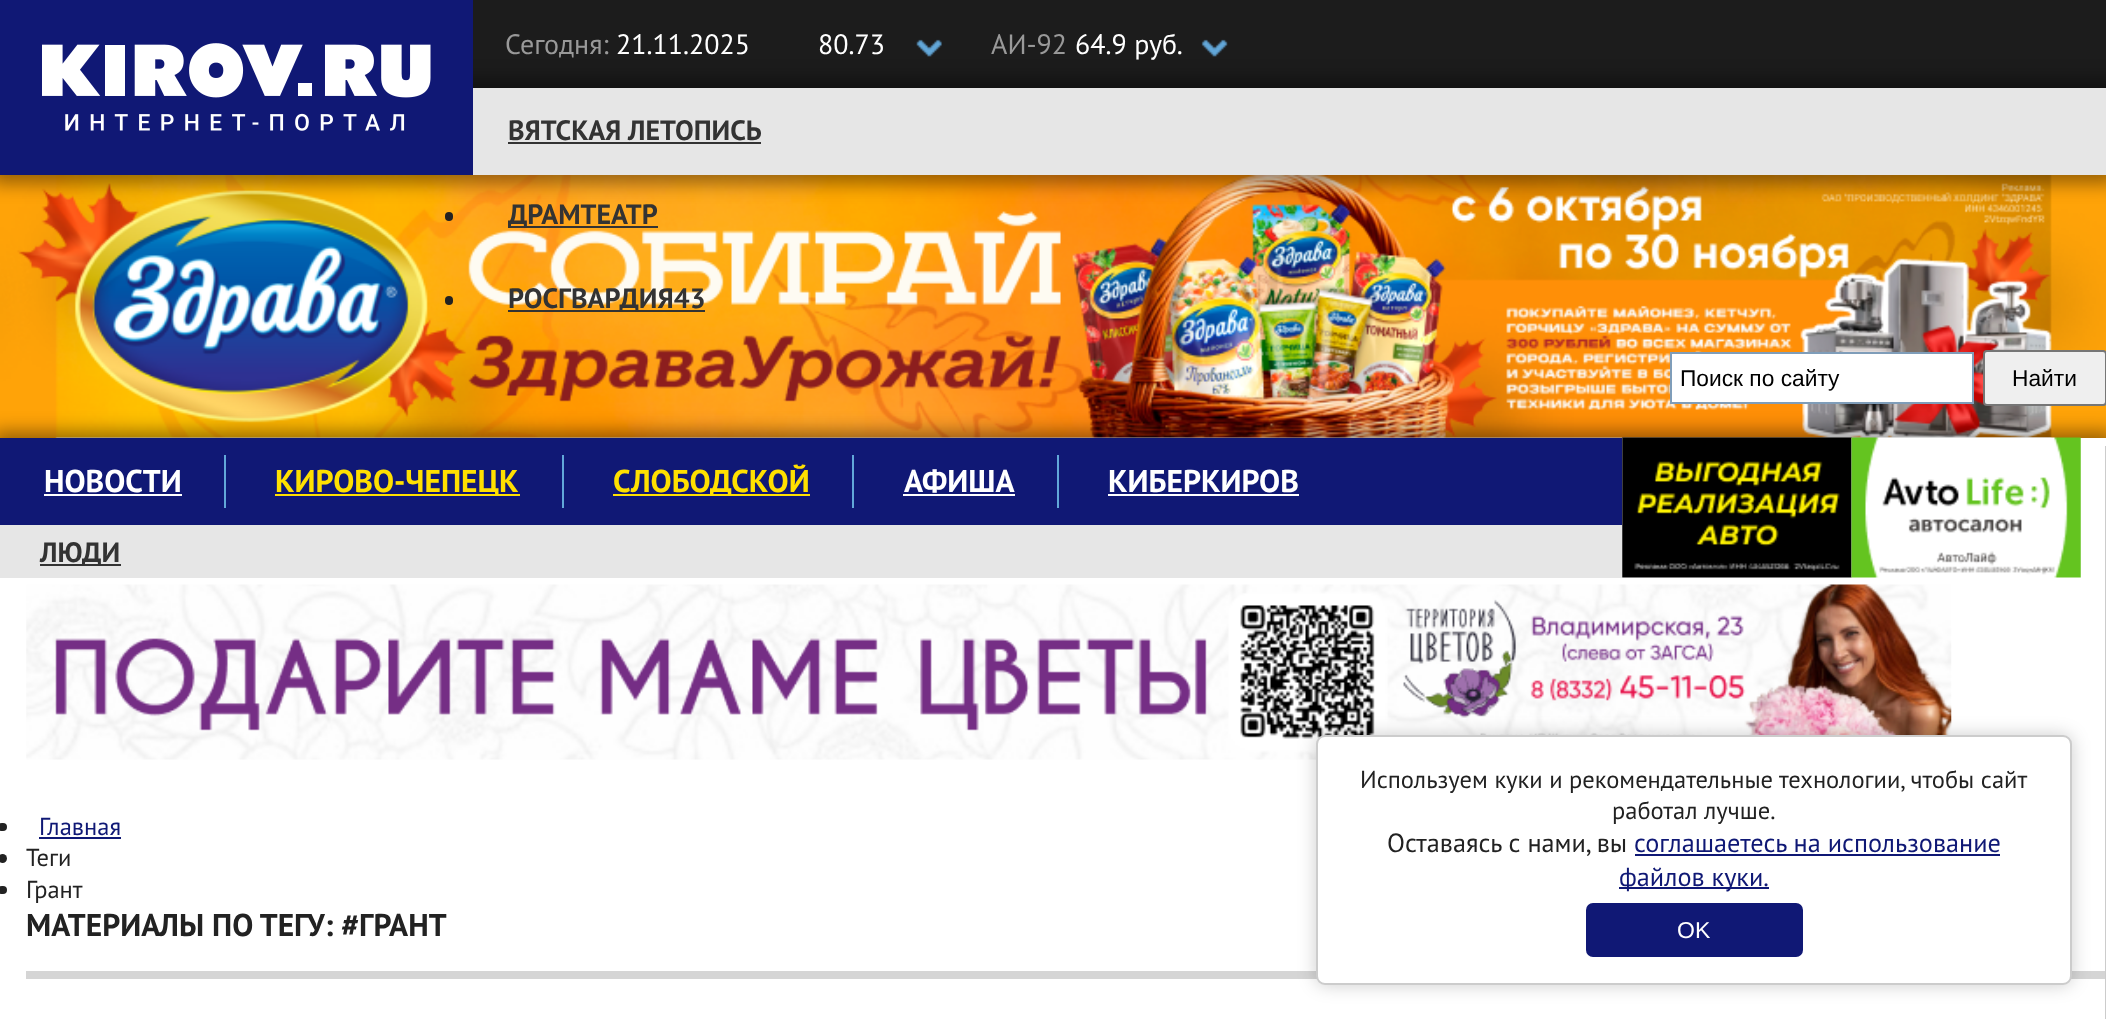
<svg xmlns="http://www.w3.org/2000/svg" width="2106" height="1019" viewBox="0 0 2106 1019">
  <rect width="100%" height="100%" fill="#1c1c1c"/>
  <image x="0" y="175" width="2106" height="263" href="img/4.png"/>
  <path d="M-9 79h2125v105H-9z" fill="#00000066" filter="blur(9px)"/>
  <image x="0" y="0" width="473" height="175" href="img/1.png"/>
  <image x="916" y="39" width="26" height="18" href="img/2.png"/>
  <image x="1201" y="39" width="27" height="18" href="img/3.png"/>
  <path d="M473 88h1633v87H473z" fill="#e6e6e6"/>
  <path d="M508 142h253v2H508z" fill="#333"/>
  <rect x="445" y="212" width="8" height="9" rx="4" fill="#222"/>
  <path d="M508 226h150v2H508z" fill="#333"/>
  <rect x="445" y="296" width="8" height="9" rx="4" fill="#222"/>
  <path d="M508 310h197v2H508z" fill="#333"/>
  <path d="M-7 431h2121v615H-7z" fill="#00000066" filter="blur(9px)"/>
  <path d="M1671 353h302v50H1671z" fill="#fff" stroke="#7f9db9" stroke-width="2"/>
  <rect x="1984" y="351" width="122" height="54" rx="3" fill="#efefef" stroke="#767676" stroke-width="2"/>
  <path d="M0 438h2106v581H0z" fill="#fff"/>
  <path d="M0 438h1622v87H0z" fill="#101875"/>
  <path d="M44 494h138v2H44z" fill="#fff"/>
  <path d="M224 455h2v53H224z" fill="#62a7d9"/>
  <path d="M275 494h245v2H275z" fill="#ffe000"/>
  <path d="M562 455h2v53H562z" fill="#62a7d9"/>
  <path d="M613 494h197v2H613z" fill="#ffe000"/>
  <path d="M852 455h2v53H852z" fill="#62a7d9"/>
  <path d="M903 494h112v2H903z" fill="#fff"/>
  <path d="M1057 455h2v53H1057z" fill="#62a7d9"/>
  <path d="M1108 494h191v2H1108z" fill="#fff"/>
  <path d="M0 525h1622v53H0z" fill="#e6e6e6"/>
  <path d="M40 564h81v2H40z" fill="#333"/>
  <path d="M26 971h2080v8H26z" fill="#d5d5d5"/>
  <path d="M2105 446h1v573H2105z" fill="#ccc"/>
  <image x="1622" y="437" width="230" height="141" href="img/5.png"/>
  <image x="1851" y="437" width="230" height="141" href="img/6.png"/>
  <image x="26" y="584" width="1926" height="176" href="img/7.png"/>
  <rect x="-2" y="823" width="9" height="8" rx="4" fill="#222"/>
  <path d="M39 837h82v2H39z" fill="#0f1875"/>
  <circle cx="2.5" cy="858.5" r="4.5" fill="#222"/>
  <rect x="-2" y="886" width="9" height="8" rx="4" fill="#222"/>
  <rect x="1316" y="735" width="756" height="250" rx="9" fill="#00000033" filter="blur(9px)"/>
  <rect x="1317" y="736" width="754" height="248" rx="8" fill="#fff" stroke="#ccc" stroke-width="2"/>
  <path d="M1635 854h365v2H1635z" fill="#0f1875"/>
  <path d="M1619 887h150v2H1619z" fill="#0f1875"/>
  <rect x="1586" y="903" width="217" height="54" rx="7" fill="#101875"/>
  <text x="505" y="54" font-family="PT Sans" font-size="28" fill="#999">Сегодня:</text>
  <g font-family="PT Sans" font-size="28" fill="#fff">
    <text x="616" y="54">21.11.2025</text>
    <text x="818" y="54">80.73</text>
  </g>
  <text x="991" y="54" font-family="PT Sans" font-size="28" fill="#999">АИ-92</text>
  <text x="1075" y="54" font-family="PT Sans" font-size="28" fill="#fff">64.9 руб.</text>
  <g font-family="PT Sans" font-size="28" font-weight="bold" fill="#333">
    <text x="508" y="140">ВЯТСКАЯ ЛЕТОПИСЬ</text>
    <text x="508" y="224">ДРАМТЕАТР</text>
    <text x="508" y="308">РОСГВАРДИЯ43</text>
  </g>
  <g font-family="Liberation Sans" font-size="22.75" fill="#000">
    <text x="1680" y="386">Поиск по сайту</text>
    <text x="2012" y="386">Найти</text>
  </g>
  <text x="44" y="492" font-family="PT Sans" font-size="31.5" font-weight="bold" fill="#fff">НОВОСТИ</text>
  <g font-family="PT Sans" font-size="31.5" font-weight="bold" fill="#ffe000">
    <text x="275" y="492">КИРОВО-ЧЕПЕЦК</text>
    <text x="613" y="492">СЛОБОДСКОЙ</text>
  </g>
  <g font-family="PT Sans" font-size="31.5" font-weight="bold" fill="#fff">
    <text x="904" y="492">АФИША</text>
    <text x="1108" y="492">КИБЕРКИРОВ</text>
  </g>
  <text x="40" y="562" font-family="PT Sans" font-size="28" font-weight="bold" fill="#333">ЛЮДИ</text>
  <text x="39" y="835" font-family="PT Sans" font-size="24.5" fill="#0f1875">Главная</text>
  <g font-family="PT Sans" font-size="24.5" fill="#222">
    <text x="26" y="866">Теги</text>
    <text x="26" y="898">Грант</text>
  </g>
  <text x="26" y="936" font-family="PT Sans" font-size="31.5" font-weight="bold" fill="#222">МАТЕРИАЛЫ ПО ТЕГУ: #ГРАНТ</text>
  <g font-family="PT Sans" font-size="24.5" fill="#222">
    <text x="1360" y="788">Используем куки и рекомендательные технологии, чтобы сайт</text>
    <text x="1612" y="819">работал лучше.</text>
  </g>
  <text x="1387" y="852" font-family="PT Sans" font-size="26.25" fill="#222">Оставаясь с нами, вы</text>
  <g font-family="PT Sans" font-size="26.25" fill="#0f1875">
    <text x="1634" y="852">соглашаетесь на использование</text>
    <text x="1619" y="886">файлов куки.</text>
  </g>
  <text x="1677" y="938" font-family="Liberation Sans" font-size="23" fill="#fff">OK</text>
</svg>
